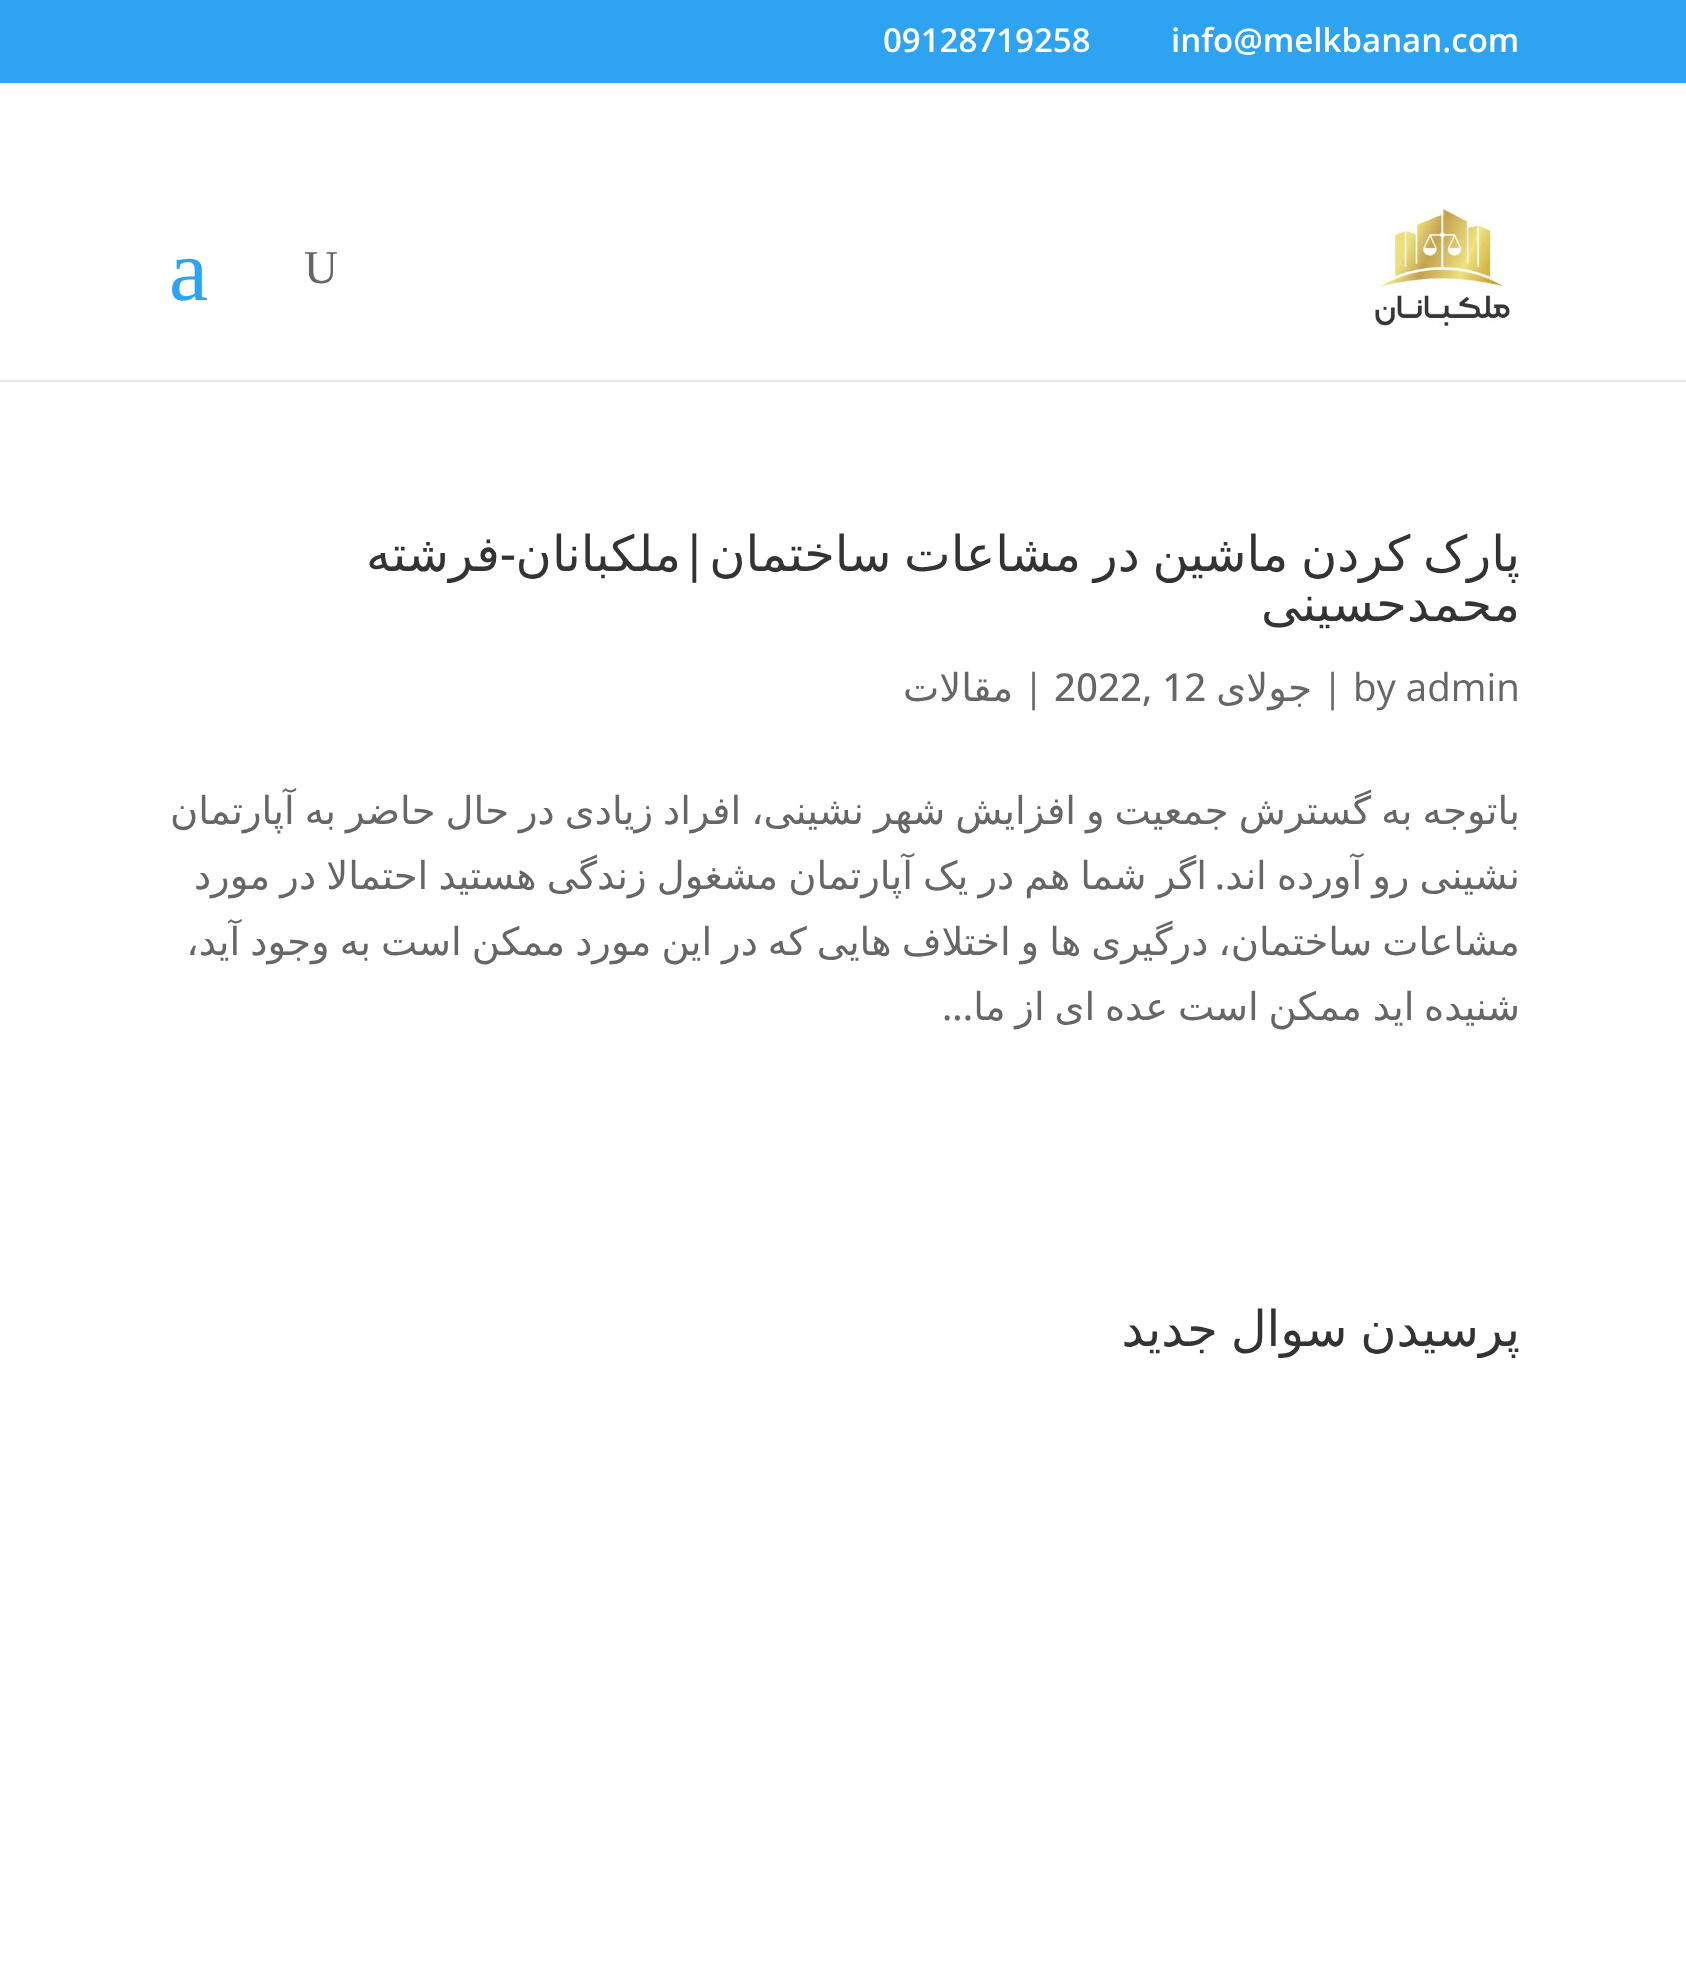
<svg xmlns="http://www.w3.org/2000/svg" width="1686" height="1968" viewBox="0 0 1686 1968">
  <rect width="100%" height="100%" fill="#fff"/>
  <path d="M0 0h1686v83H0z" fill="#2ea3f2"/>
  <path d="M0 380V382H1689V162H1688V380Z" fill="#e6e6e6"/>
  <image x="1375" y="209" width="135" height="120" href="img/1.png"/>
  <g font-family="Open Sans" font-size="33" font-weight="600" fill="#fff">
    <text x="1171" y="52">info@melkbanan.com</text>
    <text x="883" y="52">09128719258</text>
  </g>
  <text x="304" y="283" font-family="Liberation Serif" font-size="47" fill="#666">U</text>
  <text x="169" y="300" font-family="Liberation Serif" font-size="88" fill="#2ea3f2">a</text>
  <text x="1520" y="571" word-spacing="-3" font-family="DejaVu Sans" font-size="49.5" direction="rtl" fill="#333">پارک کردن ماشین در مشاعات ساختمان</text>
  <text x="708" y="571" font-family="Open Sans" font-size="49.5" font-weight="500" direction="rtl" fill="#333">|</text>
  <text x="681" y="571" font-family="DejaVu Sans" font-size="49.5" direction="rtl" fill="#333">ملکبانان</text>
  <text x="516" y="571" font-family="Open Sans" font-size="49.5" font-weight="500" direction="rtl" fill="#333">-</text>
  <g font-family="DejaVu Sans" font-size="49.5" direction="rtl" fill="#333">
    <text x="500" y="571">فرشته</text>
    <text x="1520" y="621">محمدحسینی</text>
  </g>
  <g font-family="Open Sans" font-size="38.5" fill="#666">
    <text x="1353" y="701">by admin</text>
    <text x="1322" y="701">|</text>
  </g>
  <text x="1312" y="701" font-family="DejaVu Sans" font-size="38.5" direction="rtl" fill="#666">جولای</text>
  <text x="1054" y="701" font-family="Open Sans" font-size="38.5" font-weight="500" fill="#666">2022, 12</text>
  <text x="1023" y="701" font-family="Open Sans" font-size="38.5" fill="#666">|</text>
  <g font-family="DejaVu Sans" font-size="38.5" direction="rtl" fill="#666">
    <text x="1013" y="701">مقالات</text>
    <text x="1520" y="824" word-spacing="-2.25">باتوجه به گسترش جمعیت و افزایش شهر نشینی، افراد زیادی در حال حاضر به آپارتمان</text>
    <text x="1520" y="889" word-spacing="-2.1">نشینی رو آورده اند</text>
    <text x="1207" y="889" word-spacing="-2.1">اگر شما هم در یک آپارتمان مشغول زندگی هستید احتمالا در مورد</text>
  </g>
  <text x="1225" y="889" font-family="Open Sans" font-size="38.5" font-weight="500" direction="rtl" fill="#666">.</text>
  <g font-family="DejaVu Sans" font-size="38.5" direction="rtl" fill="#666">
    <text x="1520" y="955" word-spacing="-2.25">مشاعات ساختمان، درگیری ها و اختلاف هایی که در این مورد ممکن است به وجود آید،</text>
    <text x="1520" y="1020" word-spacing="-2.5">شنیده اید</text>
    <text x="1362" y="1020" word-spacing="-2.5">ممکن است عده ای از ما</text>
  </g>
  <text x="973" y="1020" font-family="Open Sans" font-size="38.5" font-weight="500" direction="rtl" fill="#666">...</text>
  <text x="1520" y="1346" word-spacing="-3" font-family="DejaVu Sans" font-size="49.5" direction="rtl" fill="#333">پرسیدن سوال جدید</text>
</svg>
